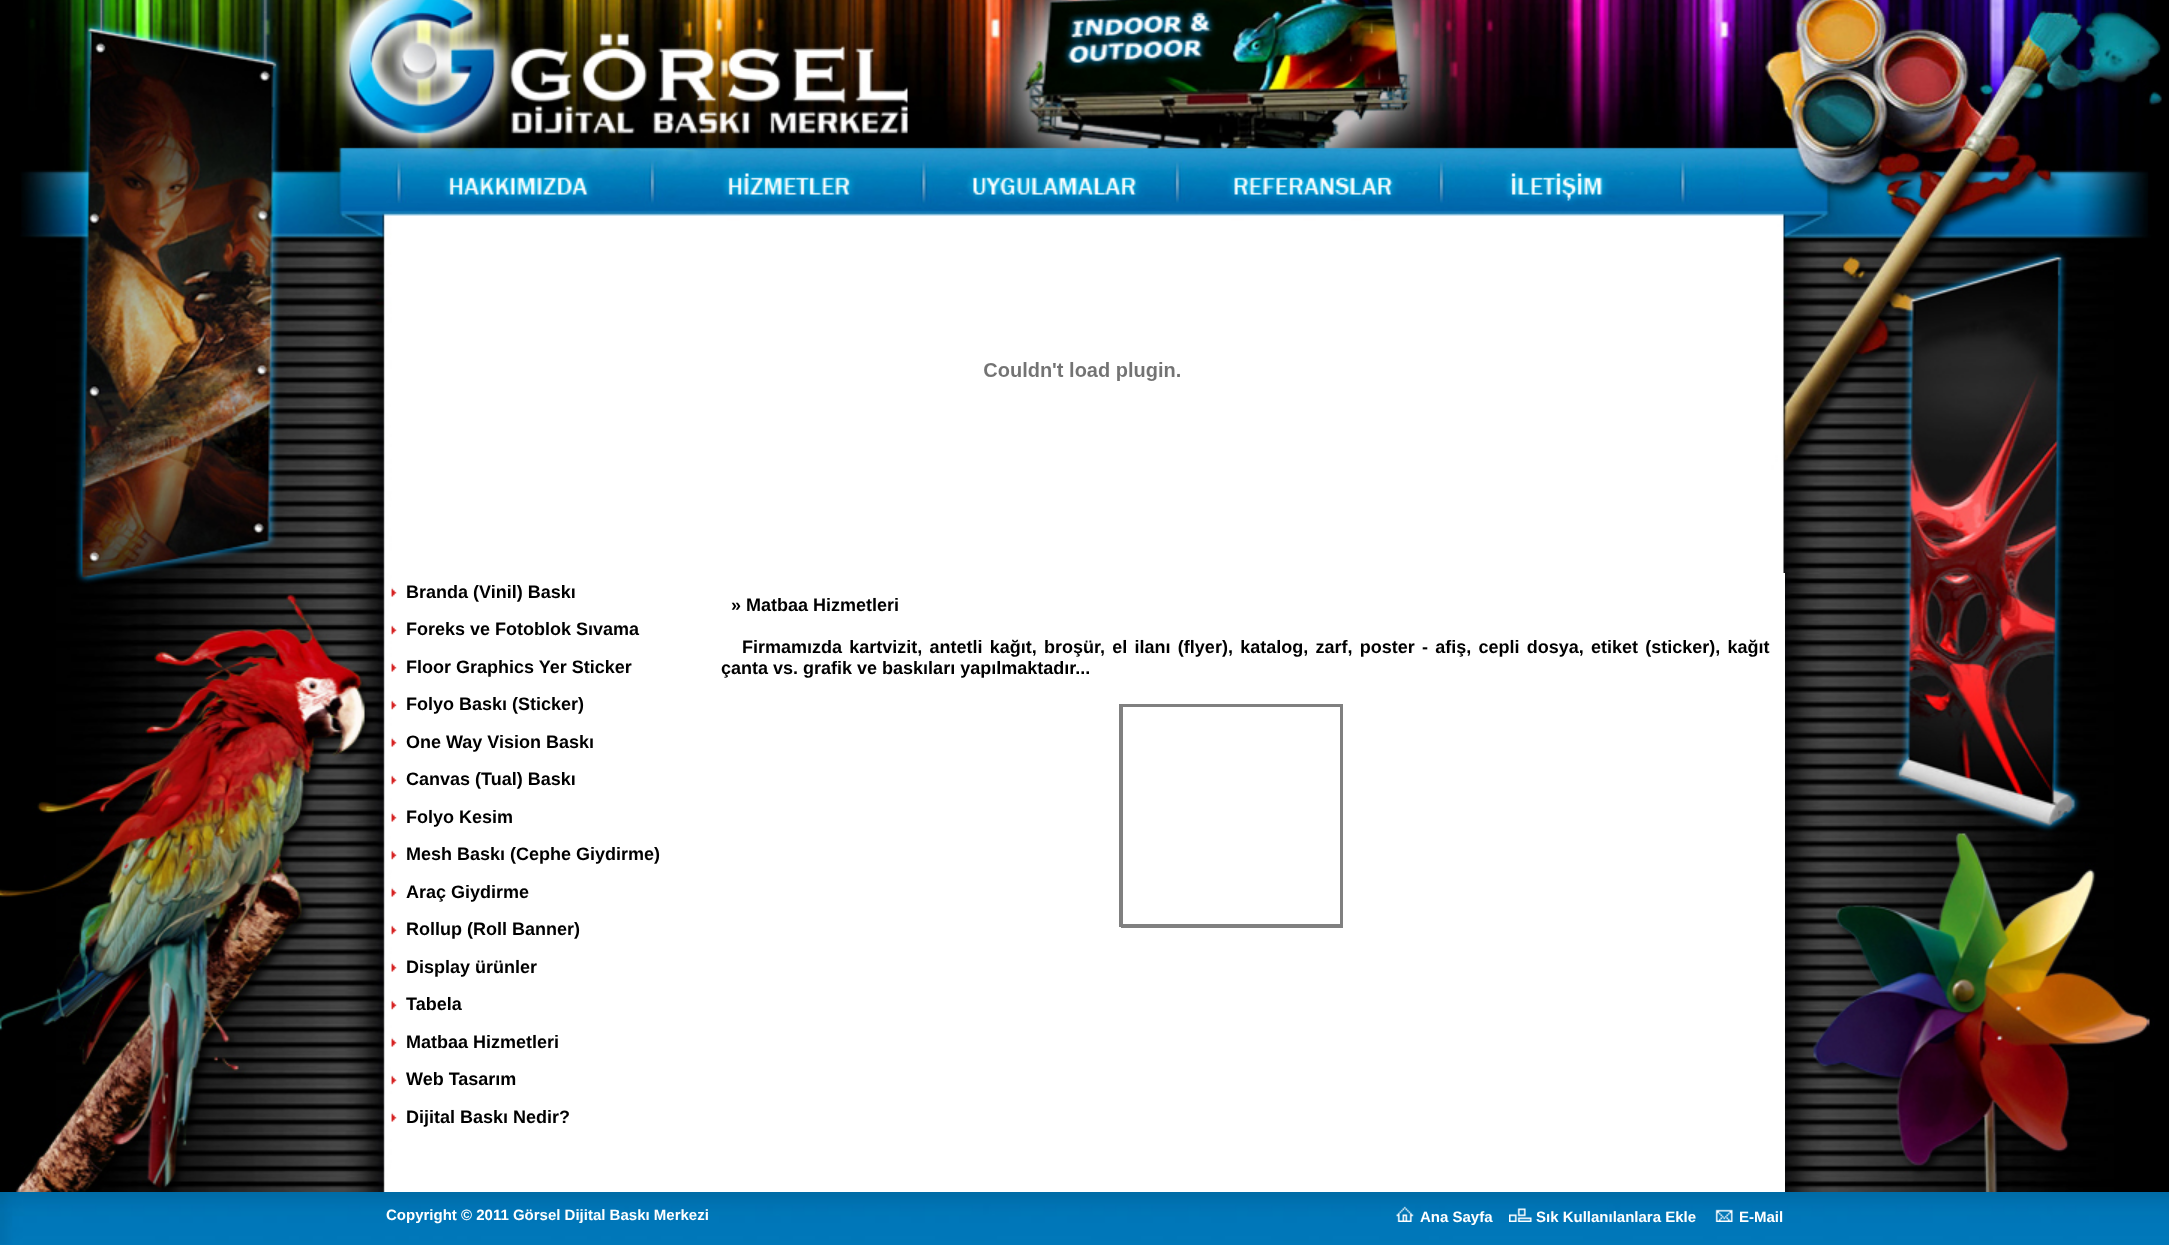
<svg xmlns="http://www.w3.org/2000/svg" width="2169" height="1245" viewBox="0 0 2169 1245">
  <rect width="100%" height="100%" fill="#0079ba"/>
  <path d="M2162 0h7v1192H2162z" fill="#000"/>
  <image x="0" y="0" width="2162" height="1192" href="img/1.png"/>
  <image x="386" y="149" width="259" height="54" href="img/2.png"/>
  <image x="645" y="150" width="261" height="58" href="img/3.png"/>
  <image x="906" y="150" width="264" height="59" href="img/4.png"/>
  <image x="1170" y="150" width="285" height="53" href="img/5.png"/>
  <image x="1455" y="150" width="240" height="55" href="img/6.png"/>
  <image x="984" y="362" width="196" height="19" href="img/7.png"/>
  <path d="M1783 573h2v619H1783z" fill="#fff"/>
  <image x="391" y="587" width="6" height="10" href="img/8.png"/>
  <image x="391" y="625" width="6" height="10" href="img/9.png"/>
  <image x="391" y="662" width="6" height="10" href="img/8.png"/>
  <image x="391" y="700" width="6" height="10" href="img/9.png"/>
  <image x="391" y="737" width="6" height="10" href="img/8.png"/>
  <image x="391" y="775" width="6" height="10" href="img/9.png"/>
  <image x="391" y="812" width="6" height="10" href="img/8.png"/>
  <image x="391" y="850" width="6" height="10" href="img/9.png"/>
  <image x="391" y="887" width="6" height="10" href="img/8.png"/>
  <image x="391" y="925" width="6" height="10" href="img/9.png"/>
  <image x="391" y="962" width="6" height="10" href="img/8.png"/>
  <image x="391" y="1000" width="6" height="10" href="img/9.png"/>
  <image x="391" y="1037" width="6" height="10" href="img/8.png"/>
  <image x="391" y="1075" width="6" height="10" href="img/9.png"/>
  <image x="391" y="1112" width="6" height="10" href="img/8.png"/>
  <path d="M1122 705h1v222H1122z" fill="#808080"/>
  <path d="M1119 704h224v3H1119z" fill="#808080"/>
  <path d="M1340 704h3v223H1340z" fill="#808080"/>
  <path d="M1119 924h224v3H1119z" fill="#808080"/>
  <path d="M1119 704h3v223H1119z" fill="#808080"/>
  <path d="M1121 927h222v1H1121z" fill="#808080"/>
  <image x="0" y="1192" width="2169" height="53" href="img/10.png"/>
  <image x="1396" y="1206" width="18" height="16" href="img/11.png"/>
  <image x="1509" y="1208" width="23" height="14" href="img/12.png"/>
  <image x="1715" y="1209" width="18" height="13" href="img/13.png"/>
  <g font-family="Liberation Sans" font-size="18" font-weight="bold" fill="#000">
    <text x="406" y="598">Branda (Vinil) Baskı</text>
    <text x="406" y="635">Foreks ve Fotoblok Sıvama</text>
    <text x="406" y="673">Floor Graphics Yer Sticker</text>
    <text x="406" y="710">Folyo Baskı (Sticker)</text>
    <text x="406" y="748">One Way Vision Baskı</text>
    <text x="406" y="785">Canvas (Tual) Baskı</text>
    <text x="406" y="823">Folyo Kesim</text>
    <text x="406" y="860">Mesh Baskı (Cephe Giydirme)</text>
    <text x="406" y="898">Araç Giydirme</text>
    <text x="406" y="935">Rollup (Roll Banner)</text>
    <text x="406" y="973">Display ürünler</text>
    <text x="406" y="1010">Tabela</text>
    <text x="406" y="1048">Matbaa Hizmetleri</text>
    <text x="406" y="1085">Web Tasarım</text>
    <text x="406" y="1123">Dijital Baskı Nedir?</text>
    <text x="731" y="611">» Matbaa Hizmetleri</text>
    <text x="742" y="653" word-spacing="2.25">Firmamızda kartvizit, antetli kağıt, broşür, el ilanı (flyer), katalog, zarf, poster - afiş, cepli dosya, etiket (sticker), kağıt</text>
    <text x="721" y="674">çanta vs. grafik ve baskıları yapılmaktadır...</text>
  </g>
  <g font-family="Liberation Sans" font-size="15" font-weight="bold" fill="#fff">
    <text x="386" y="1220">Copyright © 2011 Görsel Dijital Baskı Merkezi</text>
    <text x="1420" y="1222">Ana Sayfa</text>
    <text x="1536" y="1222">Sık Kullanılanlara Ekle</text>
    <text x="1739" y="1222">E-Mail</text>
  </g>
</svg>
